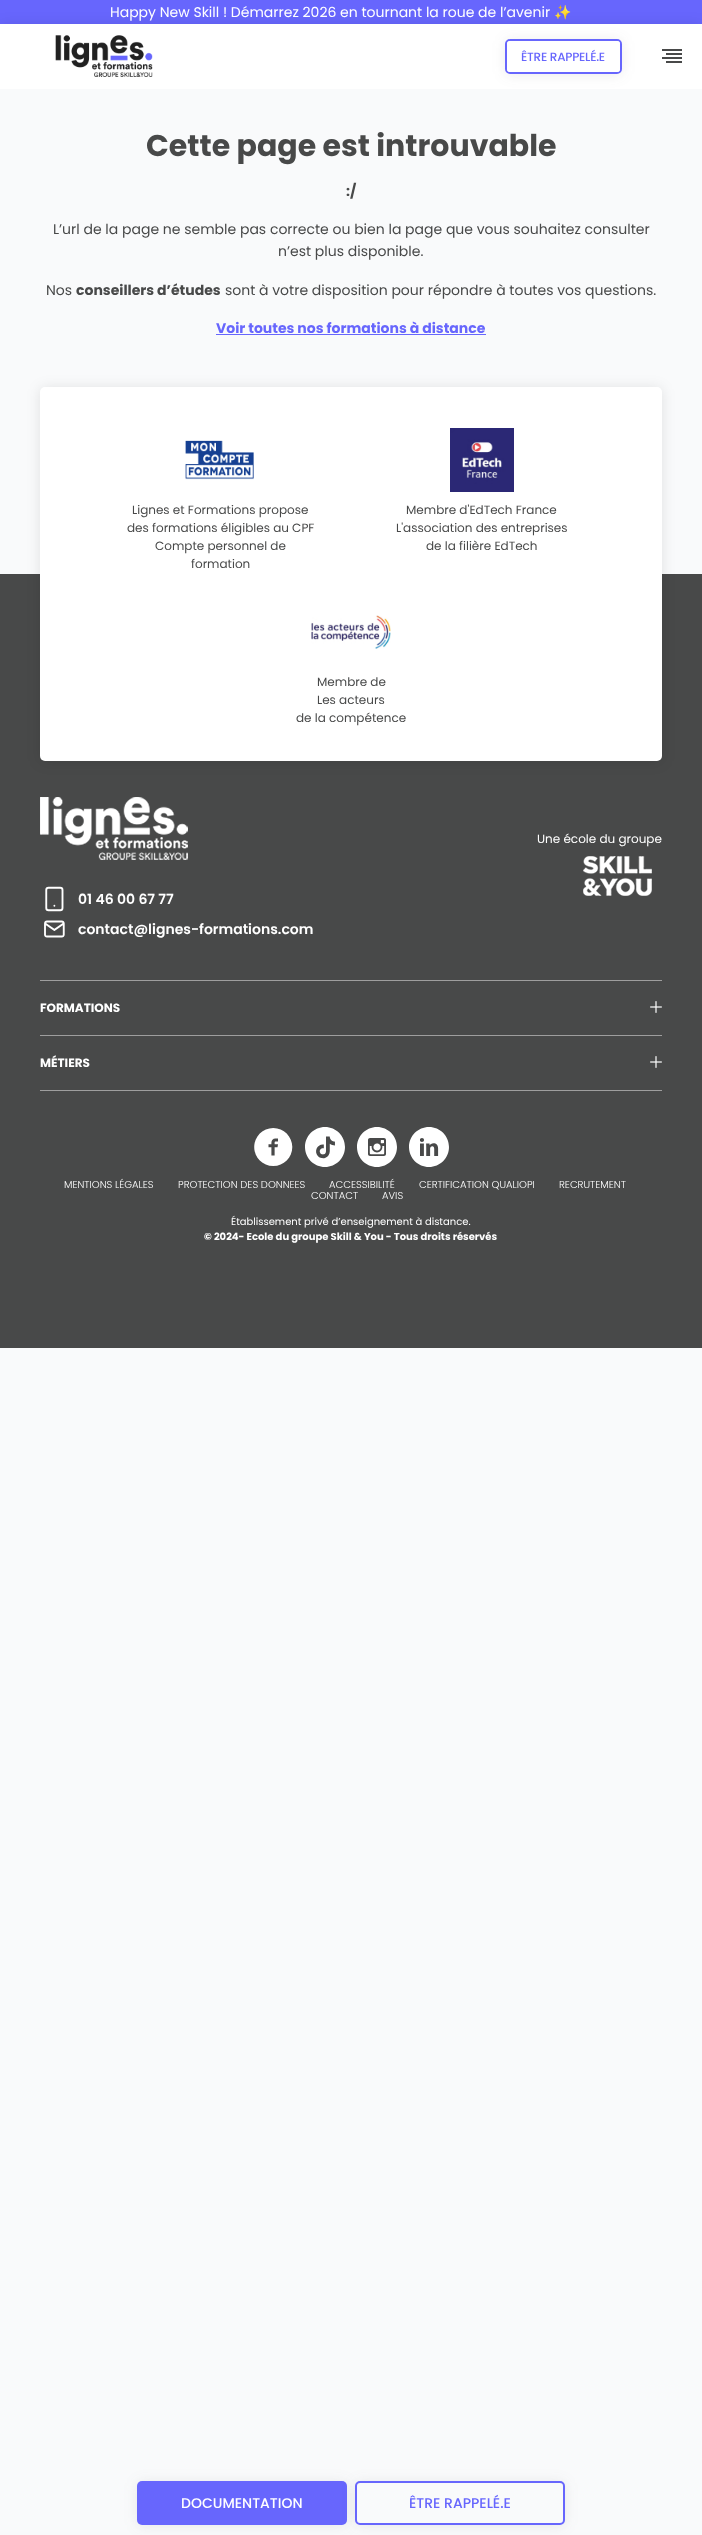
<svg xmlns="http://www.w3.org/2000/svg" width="702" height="2535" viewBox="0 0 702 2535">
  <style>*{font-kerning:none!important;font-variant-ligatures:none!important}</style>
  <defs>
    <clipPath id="clip1"><path d="M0 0h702v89H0z"/></clipPath>
  </defs>
  <rect width="100%" height="100%" fill="#f9fafb"/>
  <path d="M0 0h702v24H0z" fill="#6766fd"/>
  <g clip-path="url(#clip1)">
    <path d="M0 25h702v65H0z" fill="#0000001a" filter="blur(7px)"/>
  </g>
  <path d="M0 24h702v65H0z" fill="#fff"/>
  <image x="55" y="35" width="98" height="42" href="img/1.png"/>
  <rect x="505" y="40" width="117" height="35" rx="5" fill="#4849491a" filter="blur(7px)"/>
  <rect x="506" y="40" width="115" height="33" rx="4" fill="none" stroke="#6766fd" stroke-width="2"/>
  <rect x="507" y="41" width="113" height="31" rx="3" fill="#fff"/>
  <path d="M662 49h20v2H662z" fill="#484949"/>
  <path d="M666 53h16v2H666z" fill="#484949"/>
  <path d="M662 57h20v2H662z" fill="#484949"/>
  <path d="M666 61h16v2H666z" fill="#484949"/>
  <rect x="137" y="2482" width="210" height="44" rx="5" fill="#4849491a" filter="blur(7px)"/>
  <rect x="137" y="2481" width="210" height="44" rx="5" fill="#6766fd"/>
  <rect x="355" y="2482" width="210" height="44" rx="5" fill="#4849491a" filter="blur(7px)"/>
  <rect x="356" y="2482" width="208" height="42" rx="4" fill="#f9fafb" stroke="#6766fd" stroke-width="2"/>
  <path d="M216 334h270v1H216z" fill="#6766fd"/>
  <path d="M0 574h702v774H0z" fill="#484949"/>
  <rect x="40" y="388" width="622" height="374" rx="5" fill="#0000001a" filter="blur(7px)"/>
  <rect x="40" y="387" width="622" height="374" rx="5" fill="#fff"/>
  <image x="185" y="440" width="69" height="40" href="img/2.png"/>
  <image x="450" y="428" width="64" height="64" href="img/3.png"/>
  <image x="311" y="615" width="80" height="34" href="img/4.png"/>
  <image x="583" y="856" width="69" height="40" href="img/5.png"/>
  <image x="40" y="797" width="148" height="63" href="img/6.png"/>
  <image x="45" y="886" width="19" height="26" href="img/7.png"/>
  <image x="44" y="920" width="21" height="18" href="img/8.png"/>
  <path d="M40 980h622v1H40z" fill="#9e9e9e"/>
  <image x="650" y="1001" width="12" height="12" href="img/9.png"/>
  <path d="M40 1035h622v1H40z" fill="#9e9e9e"/>
  <path d="M40 1090h622v1H40z" fill="#9e9e9e"/>
  <image x="650" y="1056" width="12" height="12" href="img/9.png"/>
  <image x="254" y="1128" width="39" height="38" href="img/10.png"/>
  <image x="305" y="1127" width="40" height="40" href="img/11.png"/>
  <image x="357" y="1127" width="40" height="40" href="img/12.png"/>
  <image x="409" y="1127" width="40" height="40" href="img/13.png"/>
  <text x="110" y="17" font-family="Poppins" font-size="14" fill="#fff">Happy New Skill ! Démarrez 2026 en tournant la roue de l’avenir</text>
  <text x="554" y="17" font-family="Noto Color Emoji" font-size="14" fill="#fff">✨</text>
  <text x="521" y="61" font-family="Poppins" font-size="12" font-weight="500" letter-spacing="-0.25" fill="#6766fd">ÊTRE RAPPELÉ.E</text>
  <text x="181" y="2508" font-family="Poppins" font-size="14" font-weight="500" fill="#fff">DOCUMENTATION</text>
  <text x="409" y="2508" font-family="Poppins" font-size="14" font-weight="500" fill="#6766fd">ÊTRE RAPPELÉ.E</text>
  <text x="146" y="156" font-family="Poppins" font-size="30" font-weight="bold" fill="#484949">Cette page est introuvable</text>
  <text x="346" y="196" font-family="Poppins" font-size="14" font-weight="bold" fill="#484949">:/</text>
  <g font-family="Poppins" font-size="14" fill="#484949">
    <text x="53" y="234">L’url de la page ne semble pas correcte ou bien la page que vous souhaitez consulter</text>
    <text x="278" y="256">n’est plus disponible.</text>
    <text x="46" y="295">Nos</text>
  </g>
  <text x="76" y="295" font-family="Poppins" font-size="14" font-weight="bold" fill="#484949">conseillers d’études</text>
  <text x="225" y="295" font-family="Poppins" font-size="14" fill="#484949">sont à votre disposition pour répondre à toutes vos questions.</text>
  <text x="216" y="333" font-family="Poppins" font-size="14" font-weight="bold" fill="#6766fd">Voir toutes nos formations à distance</text>
  <g font-family="Poppins" font-size="12" fill="#484949">
    <text x="132" y="514">Lignes et Formations propose</text>
    <text x="127" y="532">des formations éligibles au CPF</text>
    <text x="155" y="550">Compte personnel de</text>
    <text x="191" y="568">formation</text>
    <text x="406" y="514">Membre d'EdTech France</text>
    <text x="396" y="532">L'association des entreprises</text>
    <text x="426" y="550">de la filière EdTech</text>
    <text x="317" y="686">Membre de</text>
    <text x="317" y="704">Les acteurs</text>
    <text x="296" y="722">de la compétence</text>
  </g>
  <text x="537" y="843" font-family="Poppins" font-size="12" fill="#fff">Une école du groupe</text>
  <g font-family="Poppins" font-size="14" font-weight="600" fill="#fff">
    <text x="78" y="904">01 46 00 67 77</text>
    <text x="78" y="934">contact@lignes-formations.com</text>
  </g>
  <g font-family="Poppins" font-size="12" font-weight="bold" fill="#fff">
    <text x="40" y="1012">FORMATIONS</text>
    <text x="40" y="1067">MÉTIERS</text>
  </g>
  <g font-family="Poppins" font-size="10" font-weight="300" fill="#fff">
    <text x="64" y="1188">MENTIONS LÉGALES</text>
    <text x="178" y="1188">PROTECTION DES DONNEES</text>
    <text x="329" y="1188">ACCESSIBILITÉ</text>
    <text x="419" y="1188">CERTIFICATION QUALIOPI</text>
    <text x="559" y="1188">RECRUTEMENT</text>
    <text x="311" y="1199">CONTACT</text>
    <text x="382" y="1199">AVIS</text>
  </g>
  <text x="231" y="1225" font-family="Poppins" font-size="10" fill="#fff">Établissement privé d’enseignement à distance.</text>
  <text x="204" y="1240" font-family="Poppins" font-size="10" font-weight="bold" fill="#fff">© 2024- Ecole du groupe Skill &amp; You - Tous droits réservés</text>
</svg>
